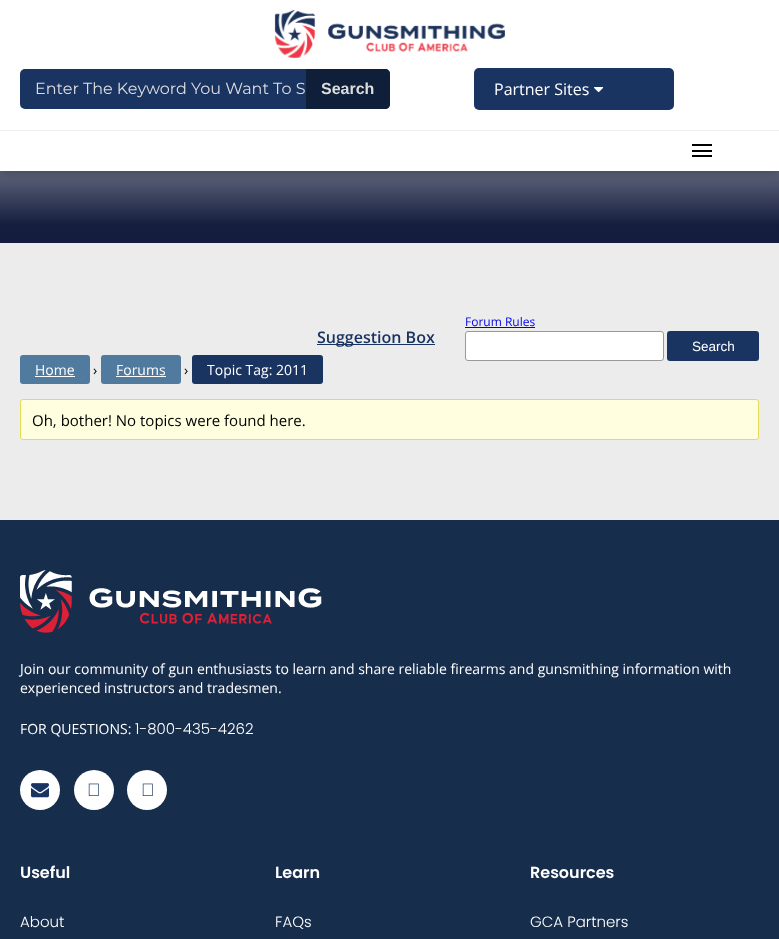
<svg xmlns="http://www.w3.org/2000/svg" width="779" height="939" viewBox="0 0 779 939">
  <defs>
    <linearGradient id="g1" gradientUnits="userSpaceOnUse" x1="390" y1="243" x2="390" y2="-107"><stop offset="0" stop-color="#151d3e"/><stop offset="0.05" stop-color="#151d3e"/><stop offset="0.5" stop-color="#ececec"/></linearGradient>
  </defs>
  <rect width="100%" height="100%" fill="#ececec"/>
  <path d="M0 171h779v72H0z" fill="url(#g1)"/>
  <path d="M-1 0h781v173H-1z" fill="#0000004d" filter="blur(5px)"/>
  <path d="M0 0h779v171H0z" fill="#fff"/>
  <path d="M0 130h779v1H0z" fill="#eee"/>
  <image x="274" y="10" width="231" height="48" href="img/1.png"/>
  <rect x="20" y="69" width="370" height="40" rx="5" fill="#1a3462"/>
  <path d="M306 69H385C388 69 390 71 390 74V104C390 107 388 109 385 109H306Z" fill="#0f1f3a"/>
  <rect x="474" y="68" width="200" height="42" rx="5" fill="#1a3462"/>
  <image x="594" y="87" width="10" height="6" href="img/2.png"/>
  <path d="M692 150h20v2H692z" fill="#000"/>
  <path d="M692 144h20v2H692z" fill="#000"/>
  <path d="M692 155h20v2H692z" fill="#000"/>
  <path d="M317 344h118v1H317z" fill="#1a3462"/>
  <path d="M465 327h70v1H465z" fill="#00e"/>
  <rect x="465.5" y="331.5" width="198" height="29" rx="2.5" fill="#fff" stroke="#999"/>
  <rect x="667" y="331" width="92" height="30" rx="3" fill="#1a3462"/>
  <rect x="20" y="355" width="70" height="29" rx="3" fill="#517a9f"/>
  <path d="M35 376h40v1H35z" fill="#fff"/>
  <rect x="101" y="355" width="80" height="29" rx="3" fill="#517a9f"/>
  <path d="M116 376h50v1H116z" fill="#fff"/>
  <rect x="192" y="355" width="131" height="29" rx="3" fill="#1a3462"/>
  <rect x="20.5" y="399.5" width="738" height="40" rx="2.5" fill="#ffffe0" stroke="#e6db55"/>
  <path d="M0 520h779v419H0z" fill="#172d4c"/>
  <image x="20" y="570" width="302" height="63" href="img/3.png"/>
  <circle cx="40" cy="790" r="20" fill="#fff"/>
  <image x="31" y="783" width="18" height="15" href="img/4.png"/>
  <circle cx="94" cy="790" r="20" fill="#fff"/>
  <image x="88" y="783" width="11" height="13" href="img/5.png"/>
  <circle cx="147" cy="790" r="20" fill="#fff"/>
  <image x="142" y="783" width="11" height="13" href="img/5.png"/>
  <text x="35" y="94" font-family="Montserrat" font-size="16" fill="#ddd">Enter The Keyword You Want To S</text>
  <text x="321" y="94" font-family="Liberation Sans" font-size="16" font-weight="bold" fill="#ddd">Search</text>
  <text x="494" y="95" font-family="Open Sans" font-size="16" fill="#fff">Partner Sites</text>
  <text x="317" y="343" font-family="Open Sans" font-size="16" font-weight="600" fill="#1a3462">Suggestion Box</text>
  <text x="465" y="326" font-family="Open Sans" font-size="12" fill="#00e">Forum Rules</text>
  <text x="692" y="351" font-family="Liberation Sans" font-size="13.5" fill="#fff">Search</text>
  <text x="35" y="375" font-family="Open Sans" font-size="14" fill="#fff">Home</text>
  <text x="93" y="375" font-family="Open Sans" font-size="14" fill="#000">›</text>
  <text x="116" y="375" font-family="Open Sans" font-size="14" fill="#fff">Forums</text>
  <text x="184" y="375" font-family="Open Sans" font-size="14" fill="#000">›</text>
  <text x="207" y="375" font-family="Open Sans" font-size="14" fill="#fff">Topic Tag: 2011</text>
  <text x="32" y="426" font-family="Open Sans" font-size="15" fill="#000">Oh, bother! No topics were found here.</text>
  <g font-family="Open Sans" font-size="14" fill="#fff">
    <text x="20" y="674">Join our community of gun enthusiasts to learn and share reliable firearms and gunsmithing information with</text>
    <text x="20" y="693">experienced instructors and tradesmen.</text>
    <text x="20" y="734">FOR QUESTIONS:</text>
  </g>
  <text x="135" y="734" font-family="Poppins" font-size="15" font-weight="300" fill="#fff">1-800-435-4262</text>
  <text x="20" y="878" font-family="Poppins" font-size="16" font-weight="600" fill="#fff">Useful</text>
  <text x="20" y="927" font-family="Poppins" font-size="15" font-weight="300" fill="#fff">About</text>
  <text x="275" y="878" font-family="Poppins" font-size="16" font-weight="600" fill="#fff">Learn</text>
  <text x="275" y="927" font-family="Poppins" font-size="15" font-weight="300" fill="#fff">FAQs</text>
  <text x="530" y="878" font-family="Poppins" font-size="16" font-weight="600" fill="#fff">Resources</text>
  <text x="530" y="927" font-family="Poppins" font-size="15" font-weight="300" fill="#fff">GCA Partners</text>
</svg>
